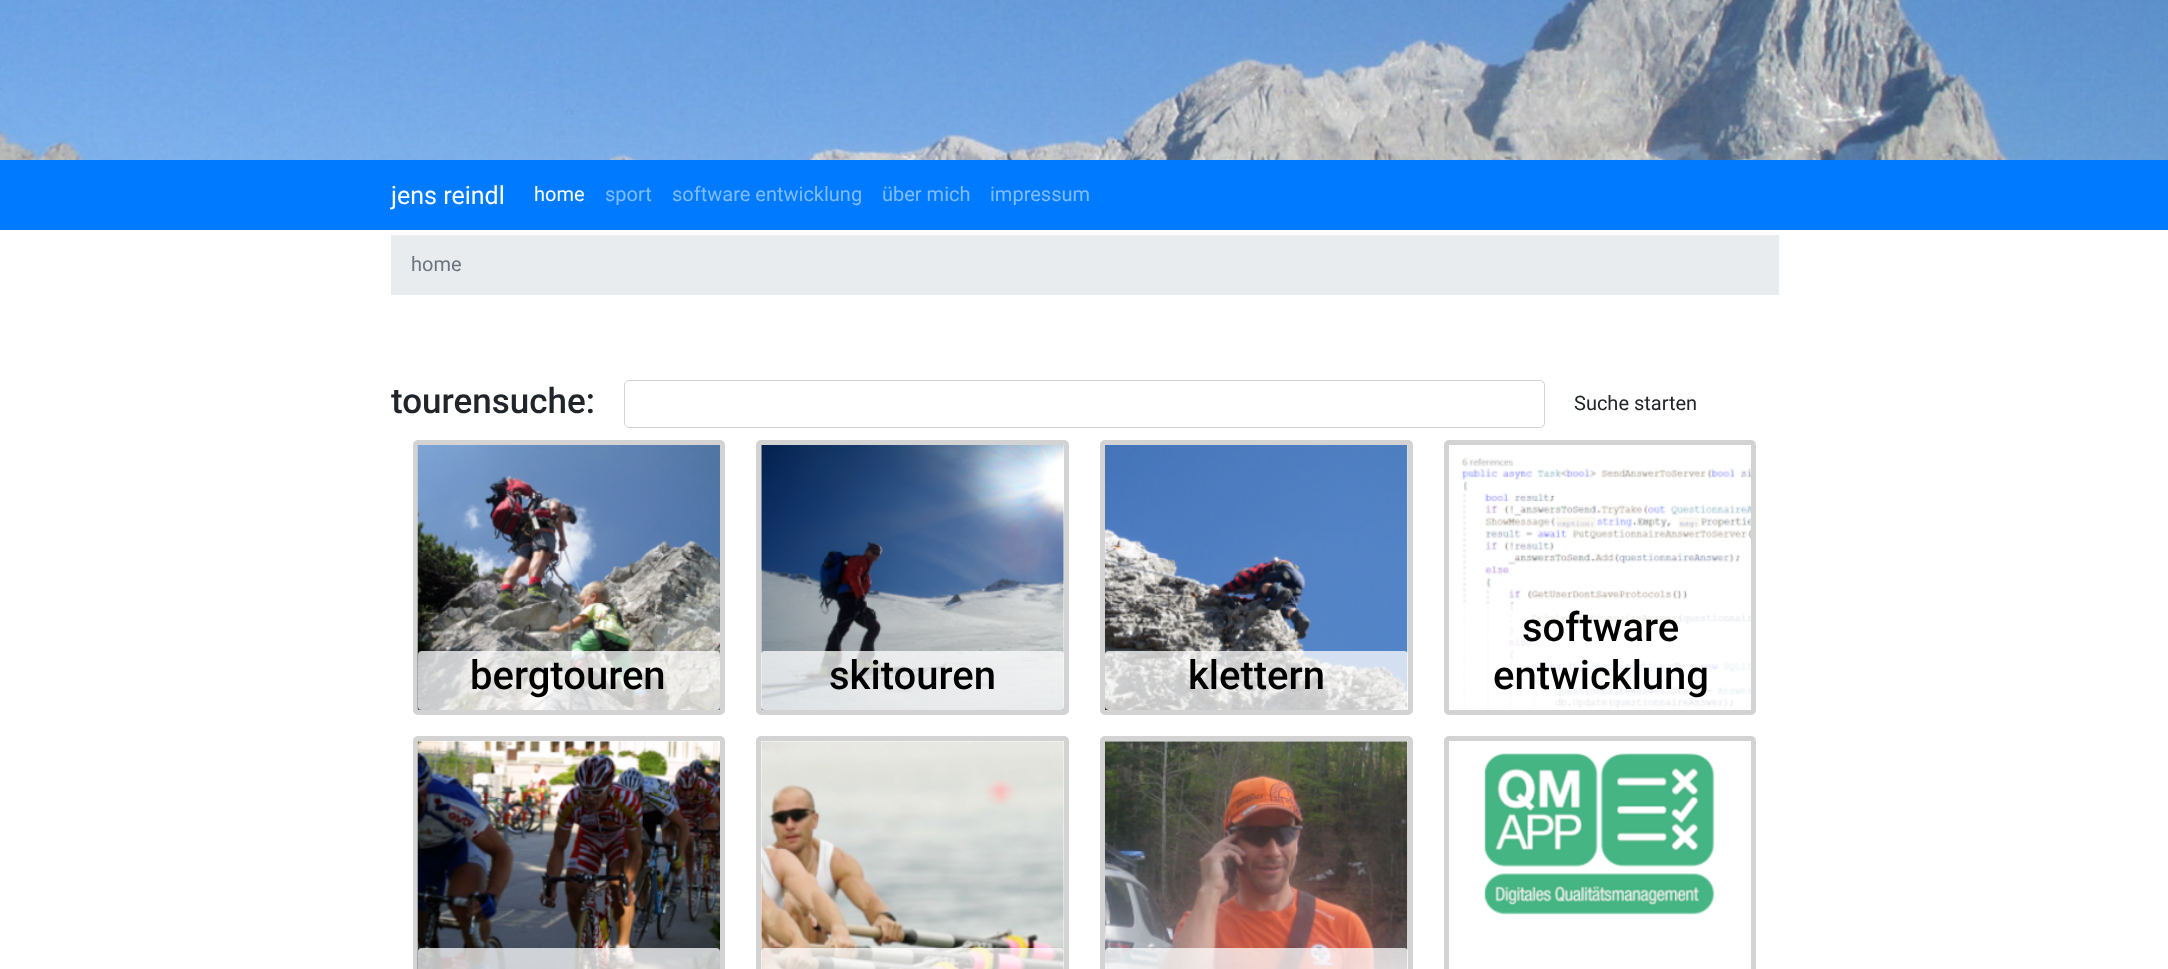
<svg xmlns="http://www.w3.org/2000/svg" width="2168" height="969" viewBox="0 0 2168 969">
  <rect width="100%" height="100%" fill="#fff"/>
  <image x="0" y="0" width="2168" height="160" href="img/1.png"/>
  <path d="M0 160h2168v70H0z" fill="#007bff"/>
  <path d="M391 235h1388v60H391z" fill="#e9ecef"/>
  <rect x="624.5" y="380.5" width="920" height="47" rx="4.5" fill="none" stroke="#ced4da"/>
  <rect x="415.5" y="442.5" width="307" height="270" rx="2.5" fill="none" stroke="#d3d3d3" stroke-width="5"/>
  <image x="417" y="445" width="303" height="265" href="img/2.png"/>
  <rect x="418" y="651" width="302" height="59" rx="4" fill="#ffffffbf"/>
  <rect x="758.5" y="442.5" width="308" height="270" rx="2.5" fill="none" stroke="#d3d3d3" stroke-width="5"/>
  <image x="761" y="445" width="303" height="265" href="img/3.png"/>
  <rect x="761" y="651" width="303" height="59" rx="4" fill="#ffffffbf"/>
  <rect x="1102.5" y="442.5" width="308" height="270" rx="2.5" fill="none" stroke="#d3d3d3" stroke-width="5"/>
  <image x="1105" y="445" width="303" height="265" href="img/4.png"/>
  <rect x="1105" y="651" width="303" height="59" rx="4" fill="#ffffffbf"/>
  <rect x="1446.5" y="442.5" width="307" height="270" rx="2.5" fill="none" stroke="#d3d3d3" stroke-width="5"/>
  <image x="1461" y="458" width="290" height="252" href="img/5.png"/>
  <rect x="1449" y="604" width="302" height="106" rx="4" fill="#ffffffbf"/>
  <rect x="415.5" y="738.5" width="307" height="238" rx="2.5" fill="none" stroke="#d3d3d3" stroke-width="5"/>
  <image x="417" y="741" width="303" height="228" href="img/6.png"/>
  <rect x="418" y="948" width="302" height="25" rx="4" fill="#ffffffbf"/>
  <rect x="758.5" y="738.5" width="308" height="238" rx="2.5" fill="none" stroke="#d3d3d3" stroke-width="5"/>
  <image x="761" y="741" width="303" height="228" href="img/7.png"/>
  <rect x="761" y="948" width="303" height="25" rx="4" fill="#ffffffbf"/>
  <rect x="1102.5" y="738.5" width="308" height="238" rx="2.5" fill="none" stroke="#d3d3d3" stroke-width="5"/>
  <image x="1105" y="741" width="303" height="228" href="img/8.png"/>
  <rect x="1105" y="948" width="303" height="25" rx="4" fill="#ffffffbf"/>
  <rect x="1446.5" y="738.5" width="307" height="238" rx="2.5" fill="none" stroke="#d3d3d3" stroke-width="5"/>
  <image x="1484" y="753" width="231" height="162" href="img/9.png"/>
  <text x="391" y="204" font-family="Roboto" font-size="25" fill="#fff">jens reindl</text>
  <text x="534" y="201" font-family="Roboto" font-size="20" fill="#fff">home</text>
  <g font-family="Roboto" font-size="20" fill="#80bdff">
    <text x="605" y="201">sport</text>
    <text x="672" y="201">software entwicklung</text>
    <text x="882" y="201">über mich</text>
    <text x="990" y="201">impressum</text>
  </g>
  <text x="411" y="271" font-family="Roboto" font-size="20" fill="#6c757d">home</text>
  <text x="391" y="413" font-family="Roboto" font-size="35" font-weight="500" fill="#212529">tourensuche:</text>
  <text x="1574" y="410" font-family="Roboto" font-size="20" fill="#212529">Suche starten</text>
  <g font-family="Roboto" font-size="40" font-weight="500" fill="#000">
    <text x="470" y="689">bergtouren</text>
    <text x="829" y="689">skitouren</text>
    <text x="1188" y="689">klettern</text>
    <text x="1522" y="641">software</text>
    <text x="1493" y="689">entwicklung</text>
  </g>
</svg>
